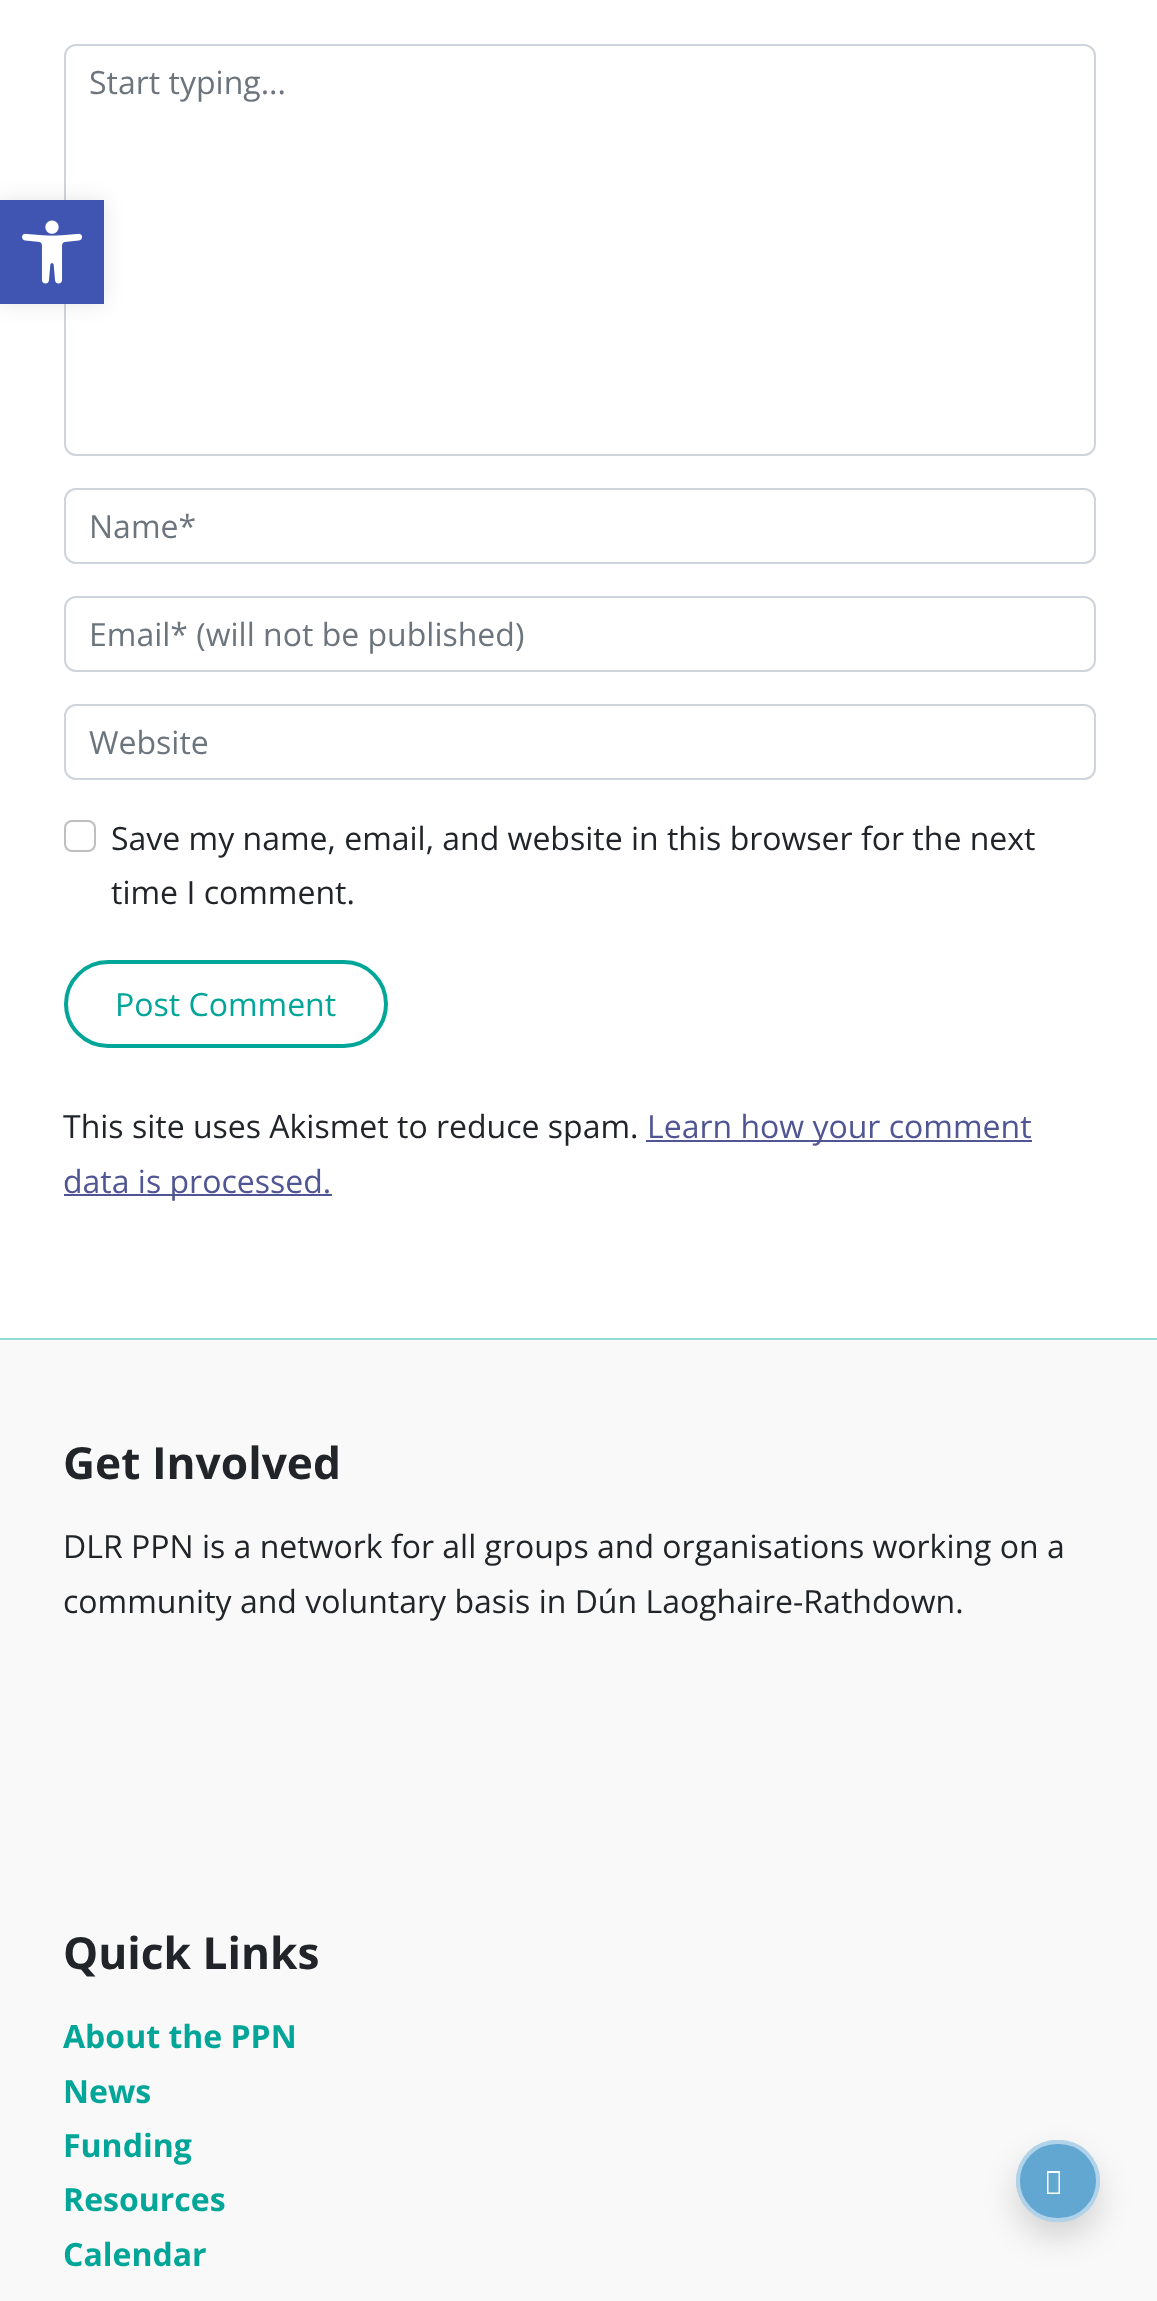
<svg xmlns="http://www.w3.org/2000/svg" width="1157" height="2301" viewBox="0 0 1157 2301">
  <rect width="100%" height="100%" fill="#fff"/>
  <rect x="65" y="45" width="1030" height="410" rx="11" fill="none" stroke="#ced4da" stroke-width="2"/>
  <rect x="65" y="489" width="1030" height="74" rx="11" fill="none" stroke="#ced4da" stroke-width="2"/>
  <rect x="65" y="597" width="1030" height="74" rx="11" fill="none" stroke="#ced4da" stroke-width="2"/>
  <rect x="65" y="705" width="1030" height="74" rx="11" fill="none" stroke="#ced4da" stroke-width="2"/>
  <rect x="65" y="821" width="30" height="30" rx="7" fill="none" stroke="#bfbfbf" stroke-width="2"/>
  <rect x="66" y="962" width="320" height="84" rx="42" fill="none" stroke="#01a698" stroke-width="4"/>
  <path d="M646 1140h386v2H646z" fill="#505593"/>
  <path d="M64 1194h268v2H64z" fill="#505593"/>
  <path d="M0 1340h1157v961H0z" fill="#f9f9f9"/>
  <path d="M0 1338h1157v2H0z" fill="#93dbd5"/>
  <rect x="1016" y="2156" width="84" height="82" rx="41" fill="#00000026" filter="blur(16px)"/>
  <rect x="1016" y="2140" width="84" height="82" rx="41" fill="#62a7d2"/>
  <rect x="1018" y="2142" width="80" height="78" rx="39" fill="none" stroke="#ffffff80" stroke-width="4"/>
  <path d="M1047 2194V2171H1060V2194ZM1048.5 2192.5H1058.5V2173H1048.5Z" fill="#fff"/>
  <path d="M0 200h104v104H0z" fill="#0000001a" filter="blur(10px)"/>
  <path d="M0 200h104v104H0z" fill="#4054b2"/>
  <image x="22" y="220" width="61" height="64" href="img/1.png"/>
  <g font-family="Open Sans" font-size="32" fill="#6c757d">
    <text x="89" y="94">Start typing...</text>
    <text x="89" y="538">Name*</text>
    <text x="89" y="646">Email* (will not be published)</text>
    <text x="89" y="754">Website</text>
  </g>
  <g font-family="Open Sans" font-size="32" fill="#212529">
    <text x="111" y="850">Save my name, email, and website in this browser for the next</text>
    <text x="111" y="904">time I comment.</text>
  </g>
  <text x="115" y="1016" font-family="Open Sans" font-size="32" fill="#01a698">Post Comment</text>
  <text x="63" y="1138" font-family="Open Sans" font-size="32" fill="#212529">This site uses Akismet to reduce spam.</text>
  <g font-family="Open Sans" font-size="32" fill="#505593">
    <text x="647" y="1138">Learn how your comment</text>
    <text x="63" y="1193">data is processed.</text>
  </g>
  <text x="63" y="1479" font-family="Open Sans" font-size="44.25" font-weight="bold" fill="#212529">Get Involved</text>
  <g font-family="Open Sans" font-size="32" fill="#212529">
    <text x="63" y="1558">DLR PPN is a network for all groups and organisations working on a</text>
    <text x="63" y="1613">community and voluntary basis in Dún Laoghaire-Rathdown.</text>
  </g>
  <text x="63" y="1969" font-family="Open Sans" font-size="44.25" font-weight="bold" fill="#212529">Quick Links</text>
  <g font-family="Open Sans" font-size="32" font-weight="bold" fill="#01a698">
    <text x="63" y="2048">About the PPN</text>
    <text x="63" y="2103">News</text>
    <text x="63" y="2157">Funding</text>
    <text x="63" y="2211">Resources</text>
    <text x="63" y="2266">Calendar</text>
  </g>
</svg>
